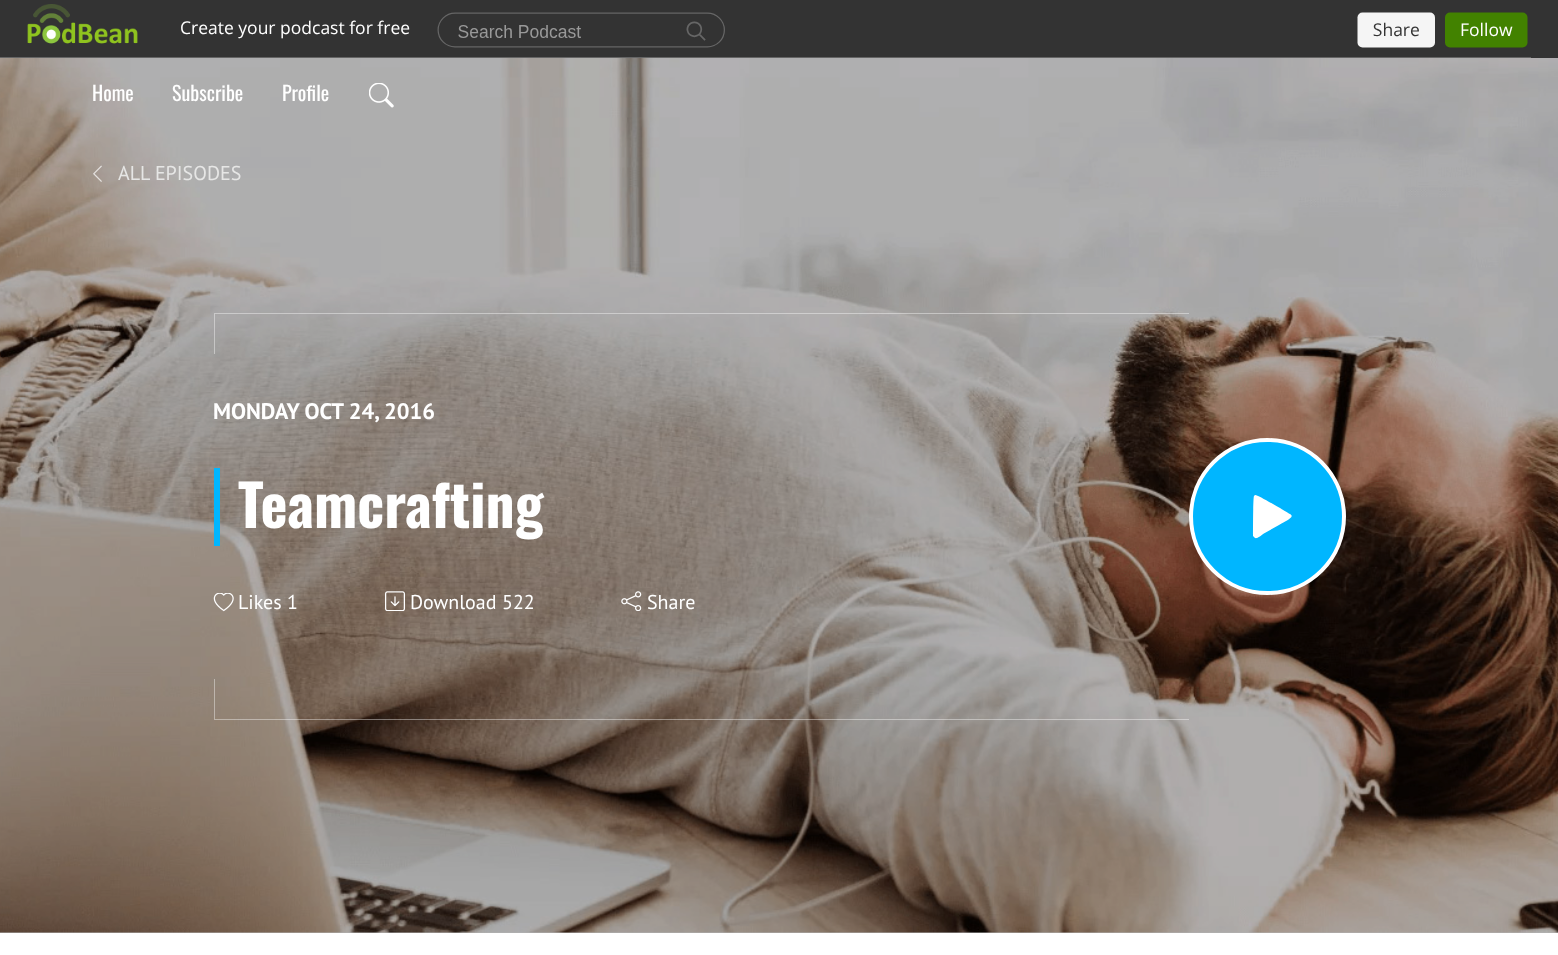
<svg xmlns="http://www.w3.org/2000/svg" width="1558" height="955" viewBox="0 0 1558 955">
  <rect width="100%" height="100%" fill="#fff"/>
  <path d="M0 932h1558v1H0z" fill="#b3b3b3"/>
  <path d="M0 0h1558v58H0z" fill="#333"/>
  <image x="0" y="4" width="1531" height="54" href="img/1.png"/>
  <image x="0" y="58" width="1558" height="875" href="img/3.png"/>
  <image x="369" y="83" width="25" height="25" href="img/2.png"/>
  <image x="93" y="165" width="9" height="17" href="img/4.png"/>
  <path d="M214 313h975v1H214z" fill="#ffffff66"/>
  <path d="M214 719h975v1H214z" fill="#ffffff66"/>
  <path d="M214 314h1v40H214z" fill="#ffffff66"/>
  <path d="M214 468h6v78H214z" fill="#00b6ff"/>
  <image x="213" y="593" width="21" height="19" href="img/5.png"/>
  <image x="385" y="591" width="20" height="20" href="img/6.png"/>
  <image x="621" y="591" width="21" height="20" href="img/7.png"/>
  <path d="M214 679h1v40H214z" fill="#ffffff66"/>
  <circle cx="1267.5" cy="516.5" r="76.5" fill="#00b6ff" stroke="#fff" stroke-width="4"/>
  <path d="M1290 514C1286 512 1257 494 1255 495L1254 496C1253 497 1253 532 1253 536L1255 538C1257 539 1262 535 1263 534L1279 525C1288 520 1295 517 1290 514Z" fill="#fff"/>
  <g font-family="Oswald" font-size="20" fill="#fff">
    <text x="92" y="101">Home</text>
    <text x="172" y="101">Subscribe</text>
    <text x="282" y="101">Profile</text>
  </g>
  <text x="118" y="180" font-family="PT Sans" font-size="20" fill="#e6e6e5">ALL EPISODES</text>
  <text x="213" y="419" font-family="PT Sans" font-size="22.5" font-weight="bold" fill="#fff">MONDAY OCT 24, 2016</text>
  <text x="238" y="528" font-family="Oswald" font-size="57.5" font-weight="bold" fill="#fff">Teamcrafting</text>
  <g font-family="PT Sans" font-size="20" fill="#fff">
    <text x="238" y="609">Likes</text>
    <text x="287" y="609">1</text>
    <text x="410" y="609">Download</text>
    <text x="502" y="609">522</text>
    <text x="647" y="609">Share</text>
  </g>
</svg>
